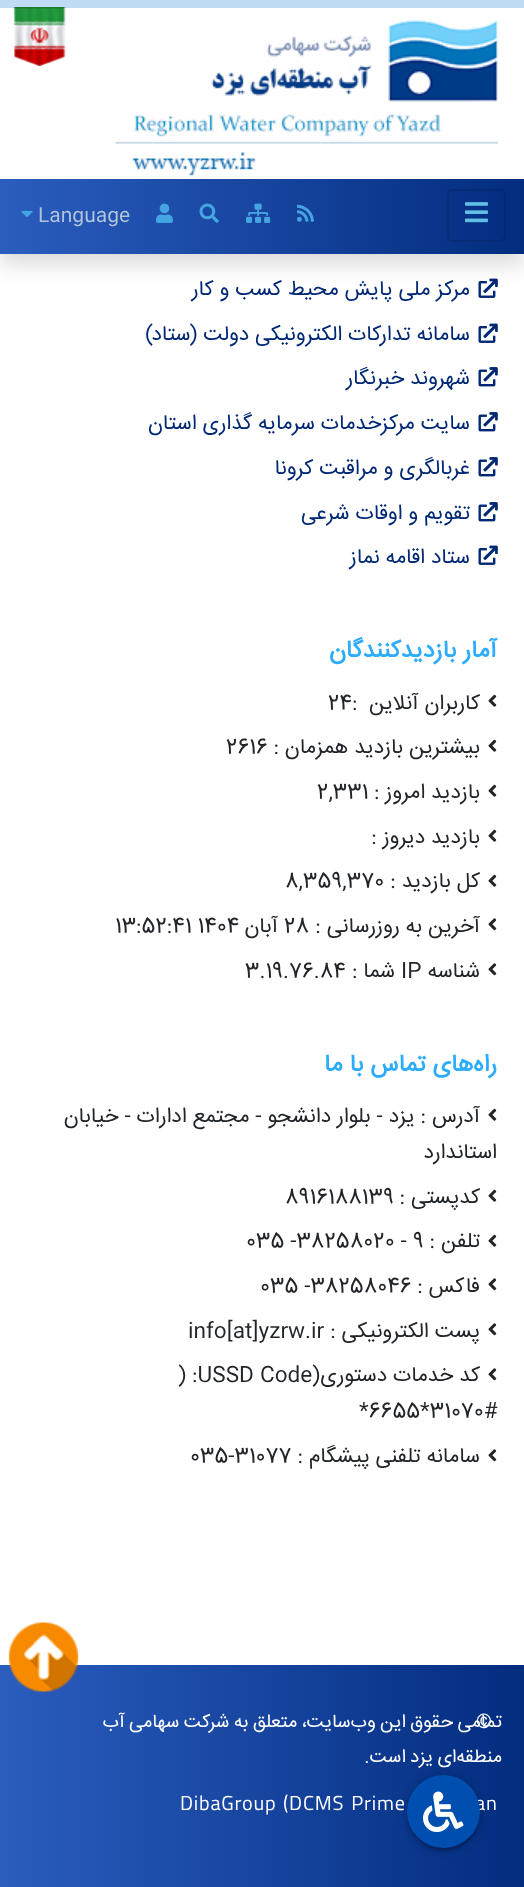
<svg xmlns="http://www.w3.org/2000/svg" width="524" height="1887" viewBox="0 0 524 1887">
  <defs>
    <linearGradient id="g1" gradientUnits="userSpaceOnUse" x1="0" y1="216" x2="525" y2="216"><stop offset="0" stop-color="#2b5dbf"/><stop offset="1" stop-color="#022c7e"/></linearGradient>
    <linearGradient id="g2" gradientUnits="userSpaceOnUse" x1="0" y1="1776" x2="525" y2="1776"><stop offset="0" stop-color="#2b5dbf"/><stop offset="1" stop-color="#022c7e"/></linearGradient>
  </defs>
  <rect width="100%" height="100%" fill="#fff"/>
  <image x="478" y="278" width="20" height="20" href="img/9.png"/>
  <path d="M0 11h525v253H0z" fill="#00000026" filter="blur(10.5px)"/>
  <path d="M0 8h524v171H0z" fill="#fff"/>
  <path d="M0 0h524v8H0z" fill="#c0dbf4"/>
  <path d="M0 179h524v75H0z" fill="url(#g1)"/>
  <rect x="448" y="190" width="57" height="51" rx="5" fill="none" stroke="#0000001a" stroke-width="2"/>
  <image x="465" y="202" width="23" height="21" href="img/1.png"/>
  <image x="115" y="20" width="383" height="156" href="img/2.png"/>
  <image x="13" y="7" width="53" height="60" href="img/3.png"/>
  <image x="297" y="204" width="17" height="18" href="img/4.png"/>
  <image x="246" y="203" width="25" height="20" href="img/5.png"/>
  <image x="199" y="203" width="20" height="20" href="img/6.png"/>
  <image x="156" y="203" width="17" height="20" href="img/7.png"/>
  <image x="21" y="210" width="12" height="8" href="img/8.png"/>
  <image x="478" y="323" width="20" height="20" href="img/9.png"/>
  <image x="478" y="367" width="20" height="20" href="img/10.png"/>
  <image x="478" y="412" width="20" height="20" href="img/10.png"/>
  <image x="478" y="457" width="20" height="20" href="img/10.png"/>
  <image x="478" y="502" width="20" height="20" href="img/10.png"/>
  <image x="478" y="545" width="20" height="20" href="img/9.png"/>
  <image x="488" y="694" width="9" height="13" href="img/11.png"/>
  <image x="488" y="739" width="9" height="13" href="img/11.png"/>
  <image x="488" y="784" width="9" height="13" href="img/11.png"/>
  <image x="488" y="829" width="9" height="13" href="img/11.png"/>
  <image x="488" y="874" width="9" height="13" href="img/11.png"/>
  <image x="488" y="918" width="9" height="13" href="img/12.png"/>
  <image x="488" y="963" width="9" height="13" href="img/12.png"/>
  <image x="488" y="1108" width="9" height="13" href="img/11.png"/>
  <image x="488" y="1189" width="9" height="13" href="img/11.png"/>
  <image x="488" y="1234" width="9" height="13" href="img/11.png"/>
  <image x="488" y="1278" width="9" height="13" href="img/12.png"/>
  <image x="488" y="1323" width="9" height="13" href="img/12.png"/>
  <image x="488" y="1368" width="9" height="13" href="img/12.png"/>
  <image x="488" y="1449" width="9" height="13" href="img/12.png"/>
  <path d="M0 1665h524v222H0z" fill="url(#g2)"/>
  <image x="8" y="1622" width="71" height="70" href="img/13.png"/>
  <rect x="407" y="1776" width="73" height="74" rx="36.5" fill="#00000033" filter="blur(4px)"/>
  <rect x="410" y="1782" width="67" height="68" rx="33.5" fill="#0000001f" filter="blur(1px)"/>
  <rect x="407" y="1778" width="73" height="73" rx="36.5" fill="#00000024" filter="blur(1.5px)"/>
  <text x="38" y="221" font-family="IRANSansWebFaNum" font-size="19.5" fill="#b4c5db">Language</text>
  <g font-family="IRANSansWebFaNum" font-size="21" direction="rtl" fill="#002875">
    <text x="470" y="295">مرکز ملی پایش محیط کسب و کار</text>
    <text x="470" y="340">سامانه تدارکات الکترونیکی دولت (ستاد)</text>
    <text x="470" y="384">شهروند خبرنگار</text>
    <text x="470" y="429">سایت مرکزخدمات سرمایه گذاری استان</text>
    <text x="470" y="474">غربالگری و مراقبت کرونا</text>
    <text x="470" y="519">تقویم و اوقات شرعی</text>
    <text x="470" y="563">ستاد اقامه نماز</text>
  </g>
  <text x="497" y="657" font-family="IRANSansWebFaNum" font-size="24" font-weight="bold" direction="rtl" fill="#2cacfd">آمار بازدیدکنندگان</text>
  <text x="480" y="709" font-family="IRANSansWebFaNum" font-size="21" direction="rtl" fill="#212529">کاربران آنلاین</text>
  <text x="328" y="709" font-family="IRANSansWebFaNum" font-size="21" fill="#212529">24:</text>
  <text x="480" y="753" font-family="IRANSansWebFaNum" font-size="21" direction="rtl" fill="#212529">بیشترین بازدید همزمان :</text>
  <text x="226" y="753" font-family="IRANSansWebFaNum" font-size="21" fill="#212529">2616</text>
  <text x="480" y="798" font-family="IRANSansWebFaNum" font-size="21" direction="rtl" fill="#212529">بازدید امروز :</text>
  <text x="317" y="798" font-family="IRANSansWebFaNum" font-size="21" fill="#212529">2,331</text>
  <g font-family="IRANSansWebFaNum" font-size="21" direction="rtl" fill="#212529">
    <text x="480" y="843">بازدید دیروز :</text>
    <text x="480" y="887">کل بازدید :</text>
  </g>
  <text x="285" y="887" font-family="IRANSansWebFaNum" font-size="21" fill="#212529">8,359,370</text>
  <text x="480" y="932" font-family="IRANSansWebFaNum" font-size="21" direction="rtl" fill="#212529">آخرین به روزرسانی :</text>
  <text x="284" y="932" font-family="IRANSansWebFaNum" font-size="21" fill="#212529">28</text>
  <text x="278" y="932" font-family="IRANSansWebFaNum" font-size="21" direction="rtl" fill="#212529">آبان</text>
  <text x="115" y="932" font-family="IRANSansWebFaNum" font-size="21" fill="#212529">13:52:41 1404</text>
  <text x="480" y="977" font-family="IRANSansWebFaNum" font-size="21" direction="rtl" fill="#212529">شناسه</text>
  <text x="401" y="977" font-family="IRANSansWebFaNum" font-size="21" fill="#212529">IP</text>
  <text x="395" y="977" font-family="IRANSansWebFaNum" font-size="21" direction="rtl" fill="#212529">شما :</text>
  <text x="245" y="977" font-family="IRANSansWebFaNum" font-size="21" fill="#212529">3.19.76.84</text>
  <text x="497" y="1071" font-family="IRANSansWebFaNum" font-size="24" font-weight="bold" direction="rtl" fill="#2cacfd">راه‌های تماس با ما</text>
  <g font-family="IRANSansWebFaNum" font-size="21" direction="rtl" fill="#212529">
    <text x="480" y="1122">آدرس : یزد - بلوار دانشجو - مجتمع ادارات - خیابان</text>
    <text x="497" y="1158">استاندارد</text>
    <text x="480" y="1203">کدپستی :</text>
  </g>
  <text x="285" y="1203" font-family="IRANSansWebFaNum" font-size="21" fill="#212529">8916188139</text>
  <text x="480" y="1247" font-family="IRANSansWebFaNum" font-size="21" direction="rtl" fill="#212529">تلفن :</text>
  <text x="246" y="1247" font-family="IRANSansWebFaNum" font-size="21" fill="#212529">035 -38258020 - 9</text>
  <text x="480" y="1292" font-family="IRANSansWebFaNum" font-size="21" direction="rtl" fill="#212529">فاکس :</text>
  <text x="260" y="1292" font-family="IRANSansWebFaNum" font-size="21" fill="#212529">035 -38258046</text>
  <text x="480" y="1337" font-family="IRANSansWebFaNum" font-size="21" direction="rtl" fill="#212529">پست الکترونیکی :</text>
  <text x="188" y="1337" font-family="IRANSansWebFaNum" font-size="21" fill="#212529">info[at]yzrw.ir</text>
  <text x="480" y="1381" font-family="IRANSansWebFaNum" font-size="21" direction="rtl" fill="#212529">کد خدمات دستوری(</text>
  <g font-family="IRANSansWebFaNum" font-size="21" fill="#212529">
    <text x="178" y="1381">) :USSD Code</text>
    <text x="359" y="1417">*6655*31070#</text>
  </g>
  <text x="480" y="1462" font-family="IRANSansWebFaNum" font-size="21" direction="rtl" fill="#212529">سامانه تلفنی پیشگام :</text>
  <text x="190" y="1462" font-family="IRANSansWebFaNum" font-size="21" fill="#212529">035-31077</text>
  <text x="476" y="1727" font-family="IRANSansWebFaNum" font-size="18.75" letter-spacing="0.75" fill="#fff">©</text>
  <g font-family="IRANSansWebFaNum" font-size="18.75" letter-spacing="0.75" direction="rtl" fill="#fff">
    <text x="502" y="1727" word-spacing="-1">تمامی حقوق این وب‌سایت، متعلق به شرکت سهامی آب</text>
    <text x="502" y="1762" word-spacing="-1">منطقه‌ای یزد است.</text>
  </g>
  <g font-family="Titillium Web" font-size="20.25" letter-spacing="0.75" fill="#fff">
    <text x="475" y="1810">an</text>
    <text x="283" y="1810" word-spacing="2">(DCMS Prime</text>
    <text x="180" y="1810">DibaGroup</text>
  </g>
  <circle cx="443.5" cy="1811.5" r="36.5" fill="#004eaf"/>
  <image x="423" y="1791" width="41" height="42" href="img/14.png"/>
</svg>
